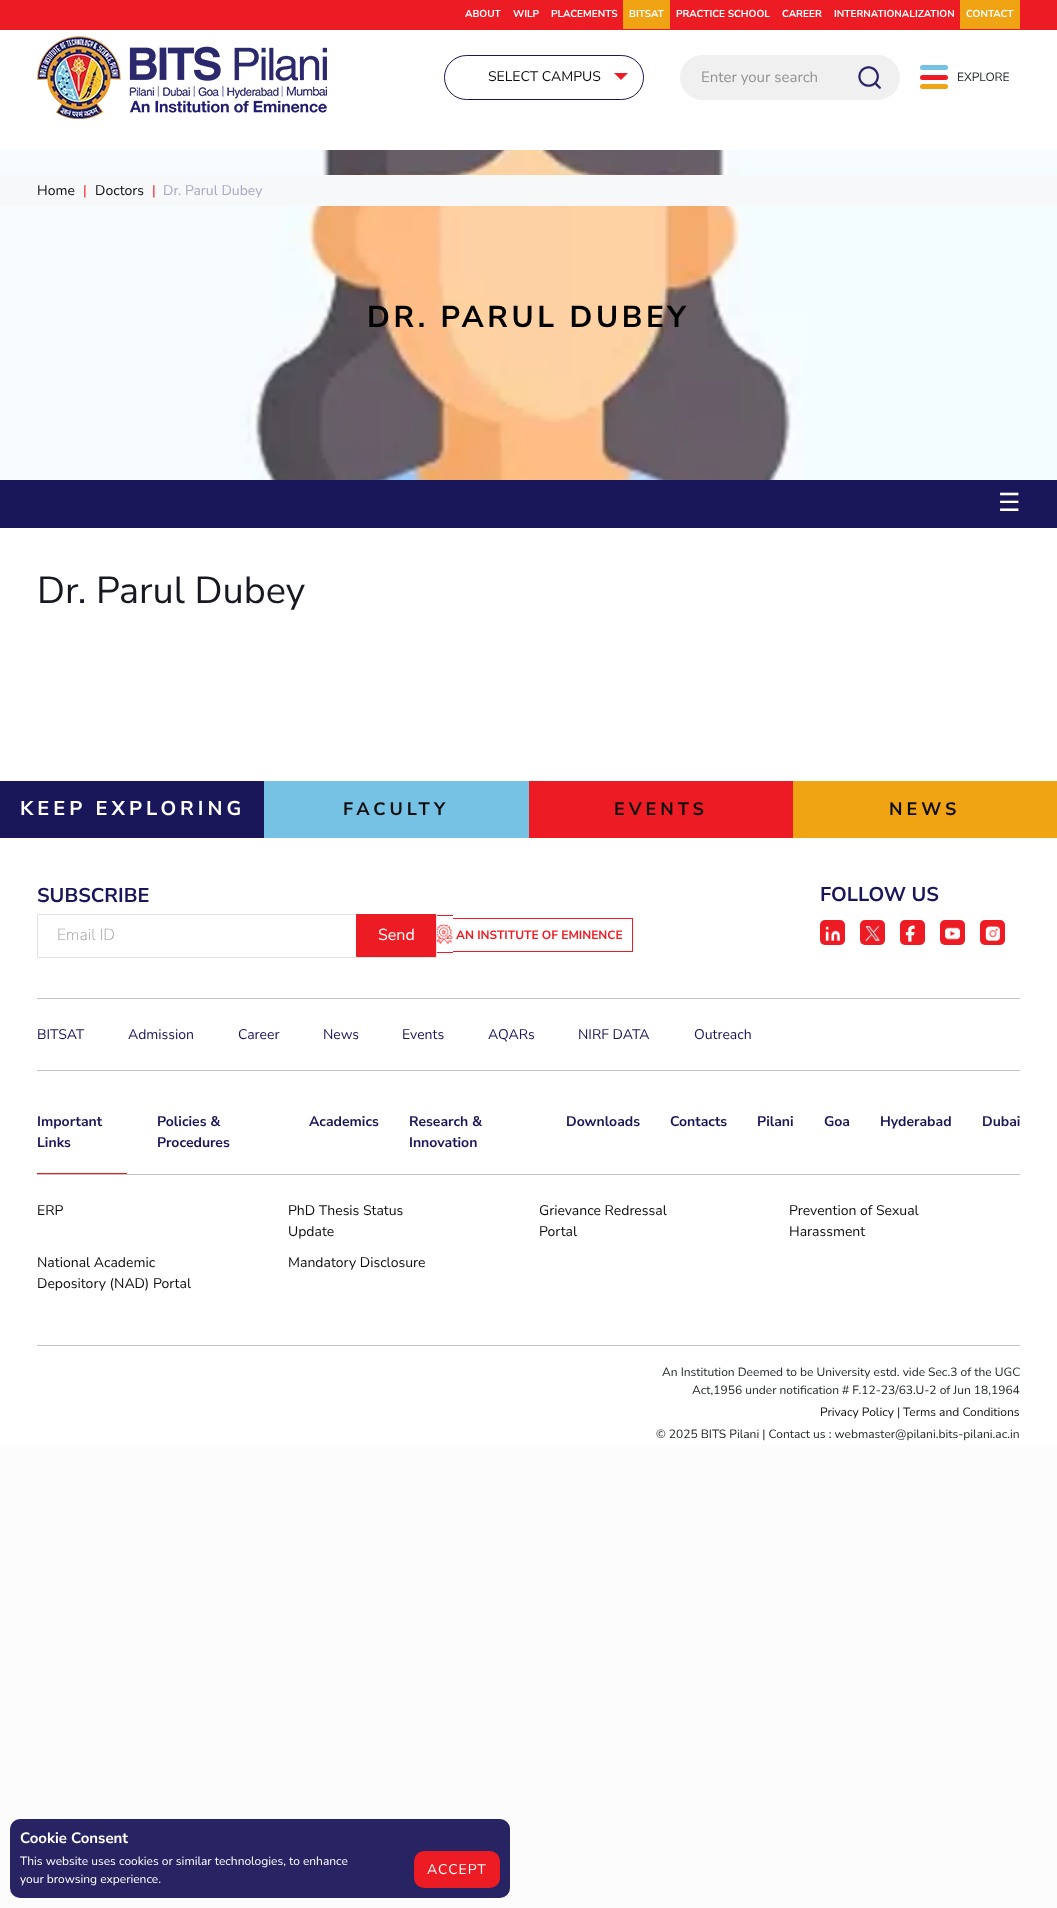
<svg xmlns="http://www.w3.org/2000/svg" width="1057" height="1908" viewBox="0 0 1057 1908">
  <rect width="100%" height="100%" fill="#fcfcfc"/>
  <path d="M0 30h1057v1415H0z" fill="#fff"/>
  <path d="M0 0h1057v30H0z" fill="#ed1c24"/>
  <path d="M623 0h47v29H623z" fill="#f0a413"/>
  <path d="M960 0h60v29H960z" fill="#f0a413"/>
  <image x="37" y="36" width="290" height="83" href="img/1.png"/>
  <rect x="444.5" y="55.5" width="199" height="44" rx="22" fill="none" stroke="#1a165a"/>
  <path d="M614 73H628L621 80Z" fill="#ed1c24"/>
  <rect x="680.5" y="55.5" width="219" height="44" rx="22" fill="#f0f0f0" stroke="#f0f0f0"/>
  <image x="858" y="66" width="23" height="23" href="img/2.png"/>
  <rect x="920" y="75" width="28" height="5" rx="2.5" fill="#ed1c24"/>
  <rect x="920" y="65" width="28" height="5" rx="2.5" fill="#76c2e5"/>
  <rect x="920" y="84" width="28" height="5" rx="2.5" fill="#f0a413"/>
  <image x="0" y="150" width="1057" height="330" href="img/3.png"/>
  <path d="M0 175h1057v31H0z" fill="#f6f8f9"/>
  <path d="M0 480h1057v48H0z" fill="#1a165a"/>
  <path d="M0 781h264v57H0z" fill="#1a165a"/>
  <path d="M264 781h265v57H264z" fill="#76c2e5"/>
  <path d="M529 781h264v57H529z" fill="#ed1c24"/>
  <path d="M793 781h264v57H793z" fill="#f0a413"/>
  <path d="M37.5 914.5h399v43H37.5z" fill="none" stroke="#dee2e6"/>
  <path d="M356.5 914.5h79v42H356.5z" fill="#ed1c24" stroke="#e61b23"/>
  <path d="M437 915h16v1H437z" fill="#ed1c24"/>
  <path d="M437 952h16v1H437z" fill="#ed1c24"/>
  <path d="M453 918h180v1H453z" fill="#ed1c24"/>
  <path d="M632 918h1v34H632z" fill="#ed1c24"/>
  <path d="M453 951h180v1H453z" fill="#ed1c24"/>
  <image x="437" y="924" width="16" height="20" href="img/4.png"/>
  <rect x="820" y="920" width="25" height="25" rx="5" fill="#ed1c24"/>
  <image x="825" y="926" width="15" height="15" href="img/5.png"/>
  <rect x="860" y="920" width="25" height="25" rx="5" fill="#ed1c24"/>
  <image x="865" y="926" width="15" height="15" href="img/6.png"/>
  <rect x="900" y="920" width="25" height="25" rx="5" fill="#ed1c24"/>
  <image x="905" y="925" width="10" height="17" href="img/7.png"/>
  <rect x="940" y="920" width="25" height="25" rx="5" fill="#ed1c24"/>
  <image x="945" y="927" width="15" height="13" href="img/8.png"/>
  <rect x="980" y="920" width="25" height="25" rx="5" fill="#ed1c24"/>
  <image x="985" y="926" width="15" height="15" href="img/9.png"/>
  <path d="M37 998h983v1H37z" fill="#c2c2c2"/>
  <path d="M37 1070h983v1H37z" fill="#c2c2c2"/>
  <path d="M37 1174h983v1H37z" fill="#c2c2c2"/>
  <path d="M37 1173h90v1H37z" fill="#ed1c24"/>
  <path d="M37 1345h983v1H37z" fill="#c2c2c2"/>
  <rect x="10" y="1819" width="500" height="79" rx="10" fill="#282464"/>
  <rect x="414" y="1851" width="86" height="37" rx="10" fill="#ed1c24"/>
  <path d="M414.5 1851.5h85v36H414.5z" fill="none" stroke="#00000008"/>
  <g font-family="Nunito Sans" font-size="10" font-weight="bold" fill="#fff">
    <text x="465" y="17">ABOUT</text>
    <text x="513" y="17">WILP</text>
    <text x="551" y="17">PLACEMENTS</text>
    <text x="629" y="17">BITSAT</text>
    <text x="676" y="17">PRACTICE SCHOOL</text>
    <text x="782" y="17">CAREER</text>
    <text x="834" y="17">INTERNATIONALIZATION</text>
    <text x="966" y="17">CONTACT</text>
  </g>
  <text x="488" y="81" font-family="Nunito Sans" font-size="14" fill="#0e0e0e">SELECT CAMPUS</text>
  <text x="701" y="82" font-family="Nunito Sans" font-size="15" fill="#929292">Enter your search</text>
  <text x="957" y="81" font-family="Nunito Sans" font-size="12" fill="#212529">EXPLORE</text>
  <text x="37" y="195" font-family="Nunito Sans" font-size="14" fill="#0e0e0e">Home</text>
  <text x="83" y="195" font-family="Nunito Sans" font-size="14" fill="#ed1c24">|</text>
  <text x="95" y="195" font-family="Nunito Sans" font-size="14" fill="#0e0e0e">Doctors</text>
  <text x="152" y="195" font-family="Nunito Sans" font-size="14" fill="#ed1c24">|</text>
  <text x="163" y="195" font-family="Nunito Sans" font-size="14" fill="#a8a7c7">Dr. Parul Dubey</text>
  <text x="367" y="327" font-family="Nunito Sans" font-size="30" font-weight="bold" letter-spacing="3.6" fill="#000">DR. PARUL DUBEY</text>
  <text x="998" y="511" font-family="DejaVu Sans" font-size="25" fill="#fff">☰</text>
  <text x="37" y="603" font-family="Nunito Sans" font-size="37.75" fill="#161922">Dr. Parul Dubey</text>
  <text x="20" y="815" font-family="Nunito Sans" font-size="20" font-weight="bold" letter-spacing="4" fill="#fff">KEEP EXPLORING</text>
  <g font-family="Nunito Sans" font-size="18" font-weight="bold" letter-spacing="4" fill="#0e0e0e">
    <text x="343" y="815">FACULTY</text>
    <text x="614" y="815">EVENTS</text>
    <text x="889" y="815">NEWS</text>
  </g>
  <text x="37" y="902" font-family="Nunito Sans" font-size="20" font-weight="bold" fill="#1a165a">SUBSCRIBE</text>
  <text x="57" y="940" font-family="Nunito Sans" font-size="16" font-weight="200" fill="#929292">Email ID</text>
  <text x="378" y="940" font-family="Nunito Sans" font-size="16" fill="#fff">Send</text>
  <text x="456" y="939" font-family="Nunito Sans" font-size="12" font-weight="bold" fill="#ed1c24">AN INSTITUTE OF EMINENCE</text>
  <text x="820" y="901" font-family="Nunito Sans" font-size="20" font-weight="bold" fill="#1a165a">FOLLOW US</text>
  <g font-family="Nunito Sans" font-size="14" fill="#1a165a">
    <text x="37" y="1039">BITSAT</text>
    <text x="128" y="1039">Admission</text>
    <text x="238" y="1039">Career</text>
    <text x="323" y="1039">News</text>
    <text x="402" y="1039">Events</text>
    <text x="488" y="1039">AQARs</text>
    <text x="578" y="1039">NIRF DATA</text>
    <text x="694" y="1039">Outreach</text>
  </g>
  <g font-family="Nunito Sans" font-size="14" font-weight="bold" fill="#1a165a">
    <text x="37" y="1126">Important</text>
    <text x="37" y="1147">Links</text>
    <text x="157" y="1126">Policies &amp;</text>
    <text x="157" y="1147">Procedures</text>
    <text x="309" y="1126">Academics</text>
    <text x="409" y="1126">Research &amp;</text>
    <text x="409" y="1147">Innovation</text>
    <text x="566" y="1126">Downloads</text>
    <text x="670" y="1126">Contacts</text>
    <text x="757" y="1126">Pilani</text>
    <text x="824" y="1126">Goa</text>
    <text x="880" y="1126">Hyderabad</text>
    <text x="982" y="1126">Dubai</text>
  </g>
  <g font-family="Nunito Sans" font-size="14" fill="#0e0e0e">
    <text x="37" y="1215">ERP</text>
    <text x="288" y="1215">PhD Thesis Status</text>
    <text x="288" y="1236">Update</text>
    <text x="539" y="1215">Grievance Redressal</text>
    <text x="539" y="1236">Portal</text>
    <text x="789" y="1215">Prevention of Sexual</text>
    <text x="789" y="1236">Harassment</text>
    <text x="37" y="1267">National Academic</text>
    <text x="37" y="1288">Depository (NAD) Portal</text>
    <text x="288" y="1267">Mandatory Disclosure</text>
  </g>
  <g font-family="Nunito Sans" font-size="12" fill="#212529">
    <text x="662" y="1376">An Institution Deemed to be University estd. vide Sec.3 of the UGC</text>
    <text x="692" y="1394">Act,1956 under notification # F.12-23/63.U-2 of Jun 18,1964</text>
  </g>
  <text x="820" y="1416" font-family="Nunito Sans" font-size="12" fill="#0e0e0e">Privacy Policy</text>
  <text x="897" y="1416" font-family="Nunito Sans" font-size="12" fill="#212529">|</text>
  <text x="903" y="1416" font-family="Nunito Sans" font-size="12" fill="#0e0e0e">Terms and Conditions</text>
  <text x="656" y="1438" font-family="Nunito Sans" font-size="12" fill="#212529">© 2025 BITS Pilani | Contact us : webmaster@pilani.bits-pilani.ac.in</text>
  <text x="20" y="1843" font-family="Nunito Sans" font-size="15" font-weight="bold" fill="#fff">Cookie Consent</text>
  <g font-family="Nunito Sans" font-size="12" fill="#fff">
    <text x="20" y="1865">This website uses cookies or similar technologies, to enhance</text>
    <text x="20" y="1883">your browsing experience.</text>
  </g>
  <text x="427" y="1874" font-family="Nunito Sans" font-size="14" letter-spacing="1" fill="#fff">ACCEPT</text>
</svg>
